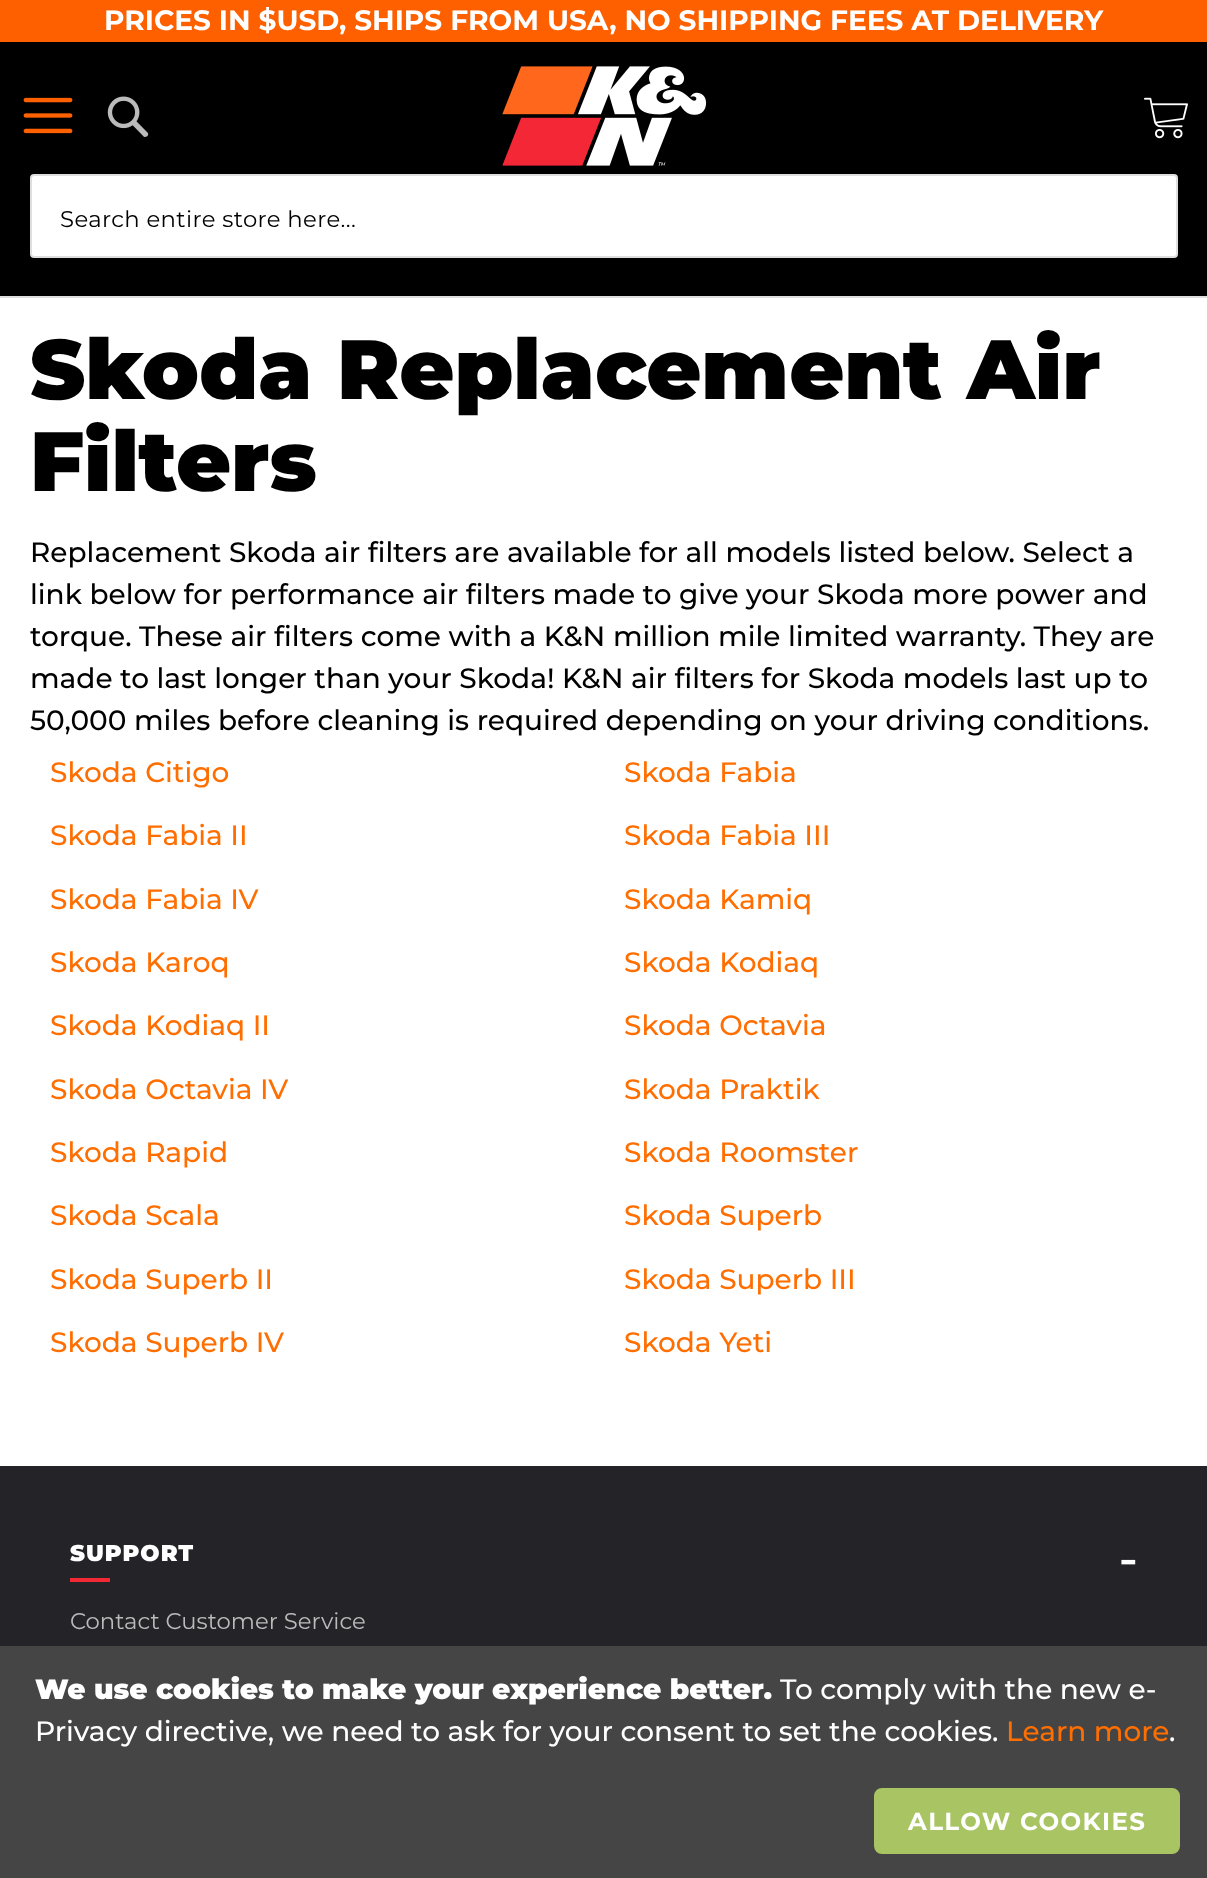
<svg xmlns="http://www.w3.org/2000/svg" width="1207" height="1878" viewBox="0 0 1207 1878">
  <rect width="100%" height="100%" fill="#fff"/>
  <path d="M0 0h1207v42H0z" fill="#fe6000"/>
  <path d="M0 42h1207v254H0z" fill="#000"/>
  <path d="M0 296h1207v2H0z" fill="#dedede"/>
  <image x="502" y="66" width="205" height="100" href="img/1.png"/>
  <image x="1144" y="97" width="44" height="42" href="img/2.png"/>
  <image x="23" y="97" width="50" height="37" href="img/3.png"/>
  <image x="107" y="96" width="42" height="41" href="img/4.png"/>
  <rect x="31" y="175" width="1146" height="82" rx="3" fill="#fff" stroke="#dedede" stroke-width="2"/>
  <path d="M0 1466h1207v180H0z" fill="#242428"/>
  <path d="M70 1578h40v4H70z" fill="#f32835"/>
  <path d="M0 1646h1207v232H0z" fill="#454545"/>
  <rect x="875" y="1789" width="304" height="64" rx="7" fill="#a9c462" stroke="#a9c462" stroke-width="2"/>
  <text x="104" y="30" font-family="Montserrat" font-size="28" font-weight="bold" fill="#fff">PRICES IN $USD, SHIPS FROM USA, NO SHIPPING FEES AT DELIVERY</text>
  <text x="60" y="227" font-family="Montserrat" font-size="22.75" letter-spacing="0.4" fill="#000">Search entire store here...</text>
  <g font-family="Montserrat" font-size="84" font-weight="900" fill="#000">
    <text x="30" y="399">Skoda Replacement Air</text>
    <text x="30" y="491">Filters</text>
  </g>
  <g font-family="Montserrat" font-size="28" font-weight="500" fill="#000">
    <text x="30" y="562">Replacement Skoda air filters are available for all models listed below. Select a</text>
    <text x="30" y="604">link below for performance air filters made to give your Skoda more power and</text>
    <text x="30" y="646">torque. These air filters come with a K&amp;N million mile limited warranty. They are</text>
    <text x="30" y="688">made to last longer than your Skoda! K&amp;N air filters for Skoda models last up to</text>
    <text x="30" y="730">50,000 miles before cleaning is required depending on your driving conditions.</text>
  </g>
  <g font-family="Montserrat" font-size="28" font-weight="500" fill="#ff6e00">
    <text x="50" y="782">Skoda Citigo</text>
    <text x="624" y="782">Skoda Fabia</text>
    <text x="50" y="845">Skoda Fabia II</text>
    <text x="624" y="845">Skoda Fabia III</text>
    <text x="50" y="909">Skoda Fabia IV</text>
    <text x="624" y="909">Skoda Kamiq</text>
    <text x="50" y="972">Skoda Karoq</text>
    <text x="624" y="972">Skoda Kodiaq</text>
    <text x="50" y="1035">Skoda Kodiaq II</text>
    <text x="624" y="1035">Skoda Octavia</text>
    <text x="50" y="1099">Skoda Octavia IV</text>
    <text x="624" y="1099">Skoda Praktik</text>
    <text x="50" y="1162">Skoda Rapid</text>
    <text x="624" y="1162">Skoda Roomster</text>
    <text x="50" y="1225">Skoda Scala</text>
    <text x="624" y="1225">Skoda Superb</text>
    <text x="50" y="1289">Skoda Superb II</text>
    <text x="624" y="1289">Skoda Superb III</text>
    <text x="50" y="1352">Skoda Superb IV</text>
    <text x="624" y="1352">Skoda Yeti</text>
  </g>
  <text x="70" y="1561" font-family="Montserrat" font-size="22.75" font-weight="900" letter-spacing="1" fill="#fff">SUPPORT</text>
  <text x="1119" y="1577" font-family="Liberation Sans" font-size="56" fill="#fff">-</text>
  <text x="70" y="1629" font-family="Montserrat" font-size="22.75" fill="#bbb">Contact Customer Service</text>
  <text x="35" y="1699" font-family="Montserrat" font-size="28" font-weight="900" fill="#fff">We use cookies to make your experience better.</text>
  <g font-family="Montserrat" font-size="28" font-weight="500" fill="#fff">
    <text x="780" y="1699">To comply with the new e-</text>
    <text x="35" y="1741">Privacy directive, we need to ask for your consent to set the cookies.</text>
  </g>
  <text x="1006" y="1741" font-family="Montserrat" font-size="28" font-weight="500" fill="#ff6e00">Learn more</text>
  <text x="1169" y="1741" font-family="Montserrat" font-size="28" font-weight="500" fill="#fff">.</text>
  <text x="908" y="1830" font-family="Montserrat" font-size="24.5" font-weight="bold" letter-spacing="1.4" fill="#fff">ALLOW COOKIES</text>
</svg>
